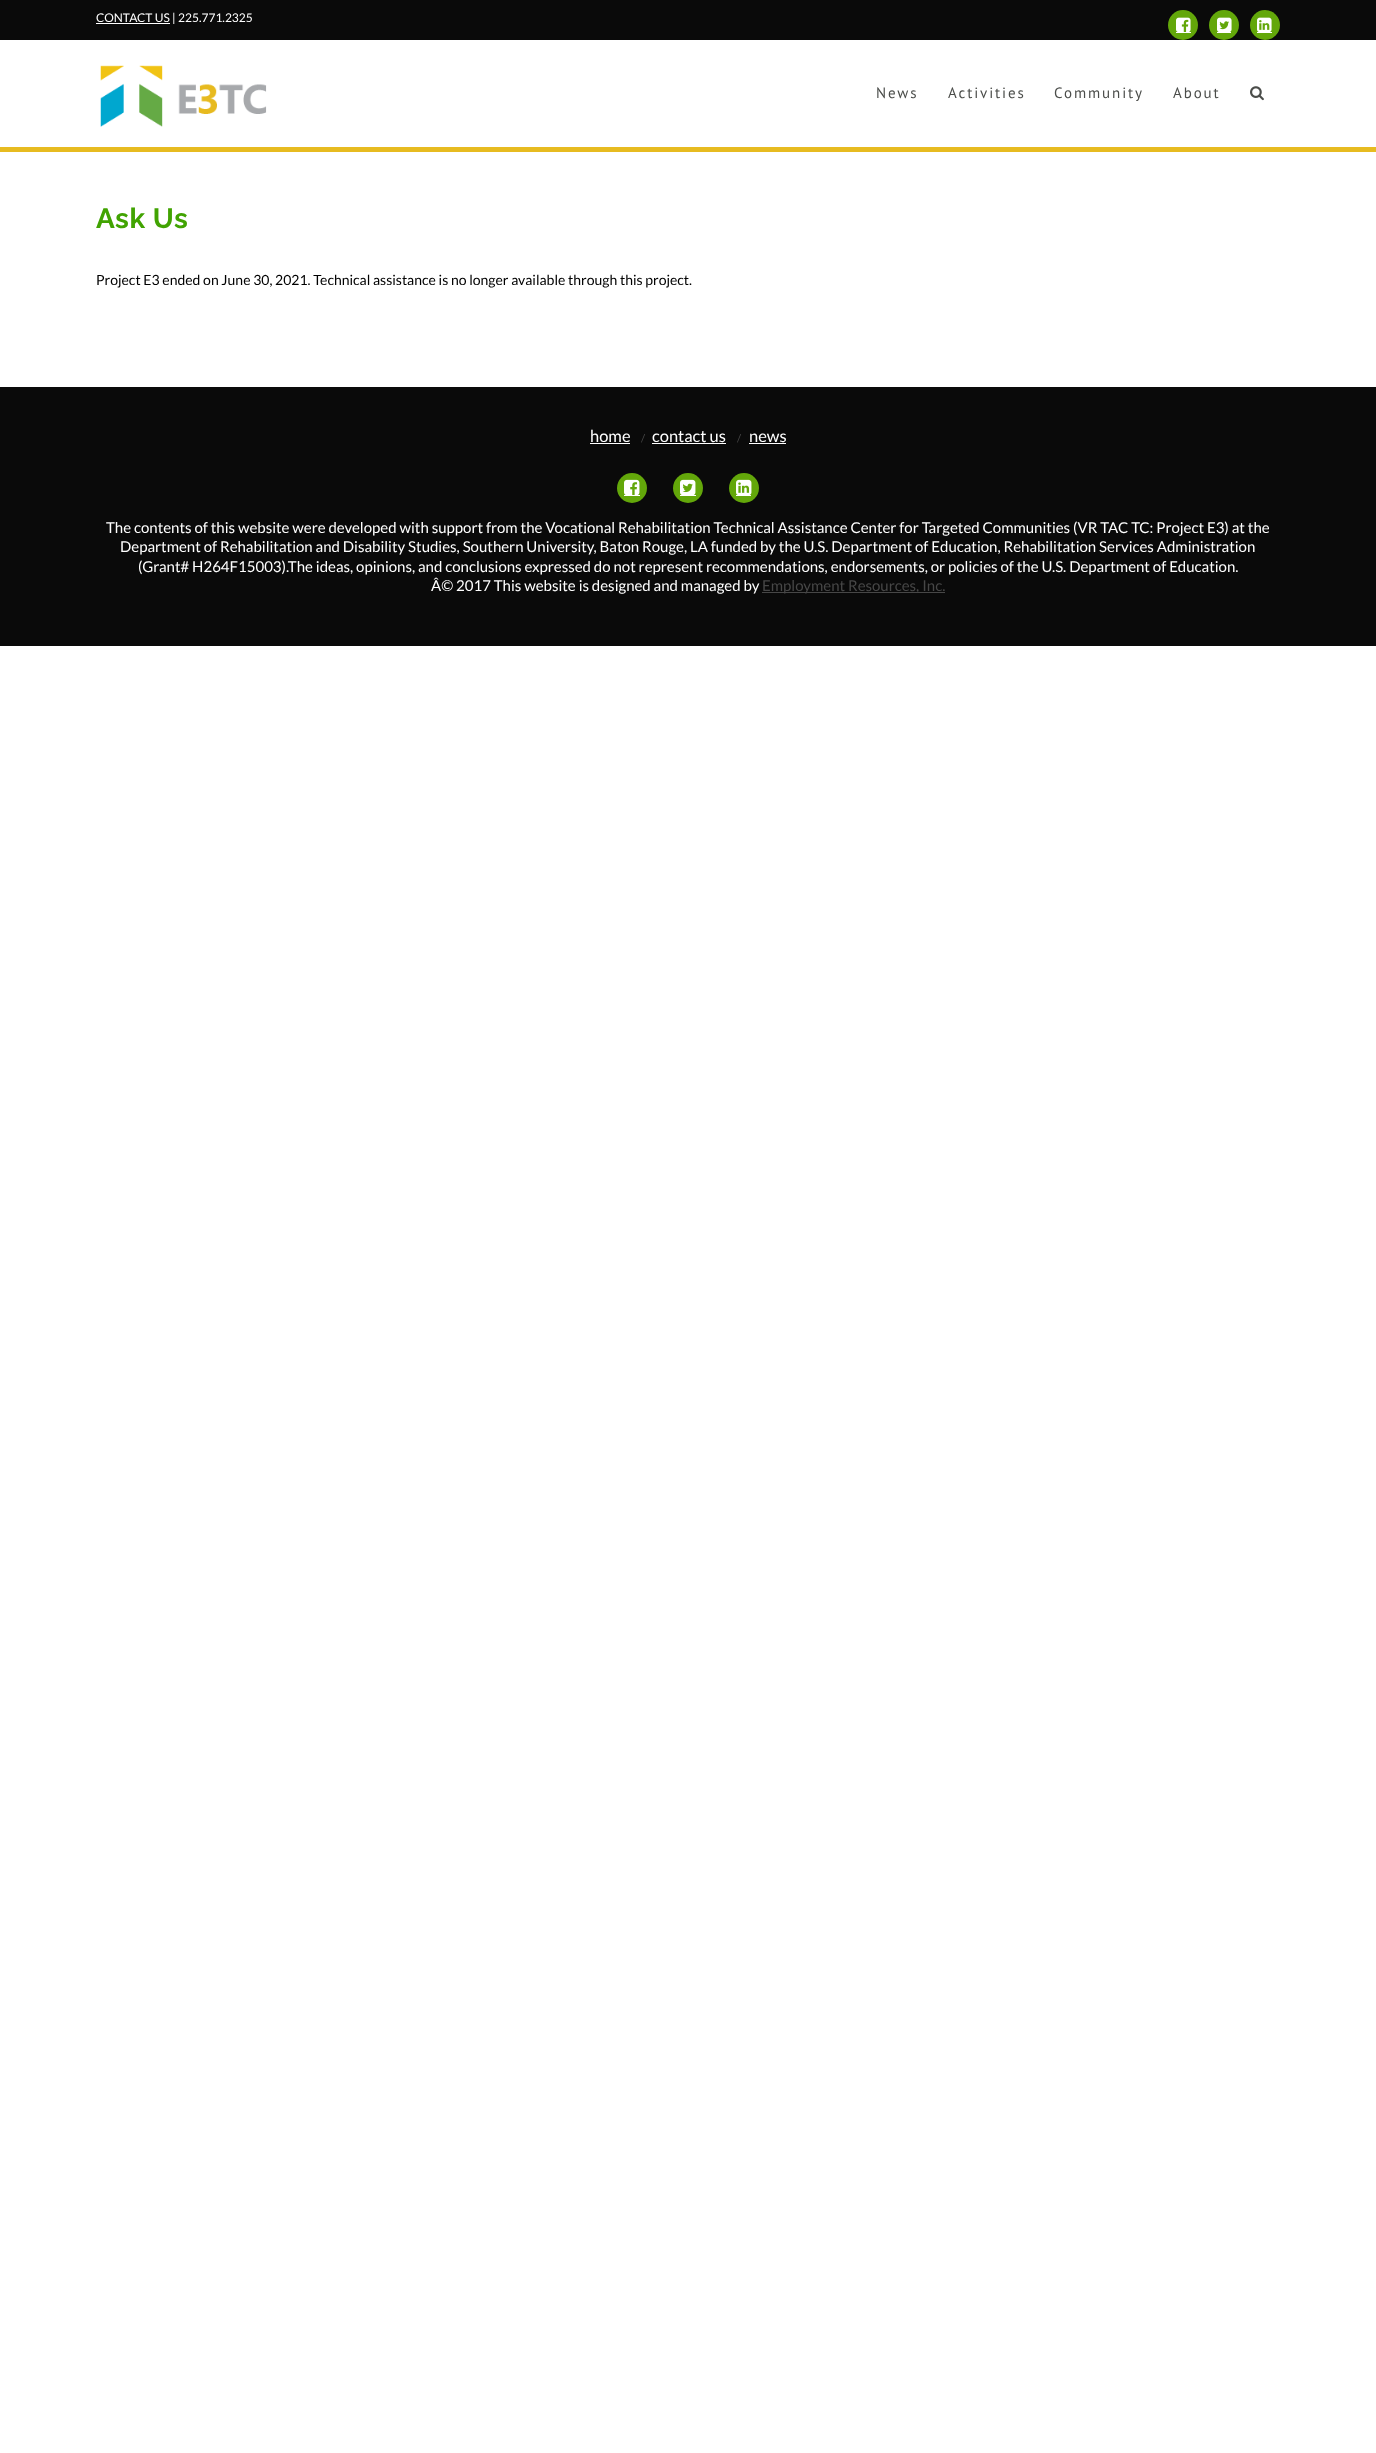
<svg xmlns="http://www.w3.org/2000/svg" width="1376" height="2453" viewBox="0 0 1376 2453">
  <rect width="100%" height="100%" fill="#fff"/>
  <path d="M0 0h1376v40H0z" fill="#0a0a0a"/>
  <path d="M96 23h74v1H96z" fill="#fff"/>
  <circle cx="1183" cy="25" r="15" fill="#63a70a"/>
  <image x="1176" y="17" width="15" height="15" href="img/1.png"/>
  <path d="M1176 32h15v1H1176z" fill="#fff"/>
  <circle cx="1224" cy="25" r="15" fill="#63a70a"/>
  <image x="1217" y="17" width="15" height="15" href="img/2.png"/>
  <path d="M1217 32h14v1H1217z" fill="#fff"/>
  <circle cx="1265" cy="25" r="15" fill="#63a70a"/>
  <image x="1257" y="17" width="15" height="15" href="img/3.png"/>
  <path d="M1257 32h15v1H1257z" fill="#fff"/>
  <path d="M0 147h1376v5H0z" fill="#e7bb20"/>
  <image x="100" y="65" width="167" height="62" href="img/4.png"/>
  <image x="1250" y="86" width="14" height="15" href="img/5.png"/>
  <path d="M0 387h1376v259H0z" fill="#0a0a0a"/>
  <path d="M590 443h40v1H590z" fill="#fff"/>
  <path d="M652 443h74v1H652z" fill="#fff"/>
  <path d="M749 443h37v1H749z" fill="#fff"/>
  <circle cx="632" cy="488" r="15" fill="#63a70a"/>
  <image x="624" y="479" width="16" height="16" href="img/6.png"/>
  <path d="M624 495h16v1H624z" fill="#fff"/>
  <circle cx="688" cy="488" r="15" fill="#63a70a"/>
  <image x="680" y="479" width="16" height="16" href="img/7.png"/>
  <path d="M680 495h16v1H680z" fill="#fff"/>
  <circle cx="744" cy="488" r="15" fill="#63a70a"/>
  <image x="736" y="479" width="16" height="16" href="img/8.png"/>
  <path d="M736 495h15v1H736z" fill="#fff"/>
  <path d="M762 592h183v1H762z" fill="#474747"/>
  <text x="96" y="22" font-family="Lato" font-size="12" fill="#fff">CONTACT US | 225.771.2325</text>
  <g font-family="PT Sans" font-size="15" letter-spacing="1.9" fill="#4b4d4a">
    <text x="876" y="98">News</text>
    <text x="948" y="98">Activities</text>
    <text x="1054" y="98">Community</text>
    <text x="1173" y="98">About</text>
  </g>
  <text x="96" y="228" font-family="Raleway" font-size="28" font-weight="bold" letter-spacing="0.5" fill="#41a302">Ask Us</text>
  <text x="96" y="285" font-family="Lato" font-size="14" fill="#000">Project E3 ended on June 30, 2021. Technical assistance is no longer available through this project.</text>
  <text x="590" y="442" font-family="Lato" font-size="16.5" fill="#fff">home</text>
  <text x="641" y="442" font-family="Lato" font-size="11" fill="#474747">/</text>
  <text x="652" y="442" font-family="Lato" font-size="16.5" fill="#fff">contact us</text>
  <text x="737" y="442" font-family="Lato" font-size="11" fill="#474747">/</text>
  <text x="749" y="442" font-family="Lato" font-size="16.5" fill="#fff">news</text>
  <g font-family="Lato" font-size="15" fill="#fff">
    <text x="106" y="533">The contents of this website were developed with support from the Vocational Rehabilitation Technical Assistance Center for Targeted Communities (VR TAC TC: Project E3) at the</text>
    <text x="120" y="552">Department of Rehabilitation and Disability Studies, Southern University, Baton Rouge, LA funded by the U.S. Department of Education, Rehabilitation Services Administration</text>
    <text x="138" y="572">(Grant# H264F15003).The ideas, opinions, and conclusions expressed do not represent recommendations, endorsements, or policies of the U.S. Department of Education.</text>
    <text x="431" y="591">Â© 2017 This website is designed and managed by</text>
  </g>
  <text x="762" y="591" font-family="Lato" font-size="15" fill="#474747">Employment Resources, Inc.</text>
</svg>
